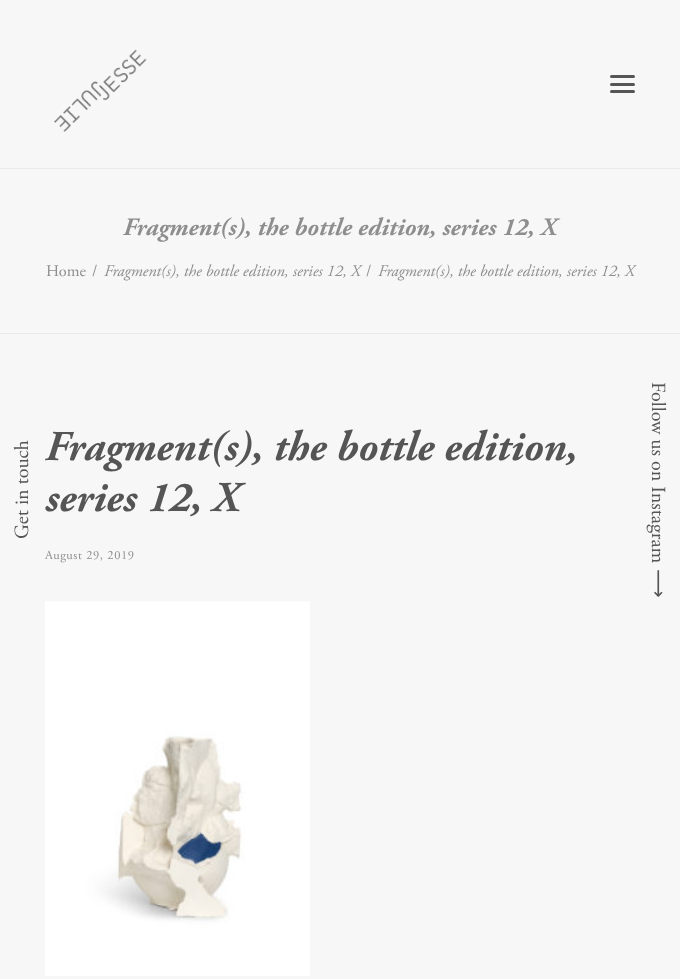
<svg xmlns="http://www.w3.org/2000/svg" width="680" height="979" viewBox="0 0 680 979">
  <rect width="100%" height="100%" fill="#f7f7f7"/>
  <path d="M0 168h680v1H0z" fill="#eaeaea"/>
  <image x="54" y="49" width="93" height="83" href="img/1.png"/>
  <rect x="610" y="83" width="25" height="3" rx="1.5" fill="#555"/>
  <rect x="610" y="75" width="25" height="3" rx="1.5" fill="#555"/>
  <rect x="610" y="90" width="25" height="3" rx="1.5" fill="#555"/>
  <path d="M0 333h680v1H0z" fill="#eaeaea"/>
  <image x="45" y="601" width="265" height="375" href="img/2.png"/>
  <text x="123" y="235" font-family="Adobe Garamond" font-size="25" font-weight="bold" font-style="italic" fill="#8e8e8e">Fragment(s), the bottle edition, series 12, X</text>
  <g font-family="Adobe Garamond" font-size="16.25" fill="#8e8e8e">
    <text x="46" y="276">Home</text>
    <text x="92" y="276">/</text>
  </g>
  <text x="104" y="276" font-family="Adobe Garamond" font-size="16.25" font-style="italic" fill="#8e8e8e">Fragment(s), the bottle edition, series 12, X</text>
  <text x="366" y="276" font-family="Adobe Garamond" font-size="16.25" fill="#8e8e8e">/</text>
  <text x="378" y="276" font-family="Adobe Garamond" font-size="16.25" font-style="italic" fill="#8e8e8e">Fragment(s), the bottle edition, series 12, X</text>
  <g font-family="Adobe Garamond" font-size="42.5" font-weight="bold" font-style="italic" fill="#555">
    <text x="45" y="460">Fragment(s), the bottle edition,</text>
    <text x="45" y="511">series 12, X</text>
  </g>
  <text x="45" y="559" font-family="Adobe Garamond" font-size="12.5" letter-spacing="0.6" fill="#8e8e8e">August 29, 2019</text>
  <g font-family="Adobe Garamond" font-size="20" fill="#555">
    <text x="28" y="539" transform="rotate(-90 28 539)">Get in touch</text>
    <text x="652" y="382" transform="rotate(90 652 382)">Follow us on Instagram</text>
  </g>
  <text x="652" y="569" transform="rotate(90 652 569)" font-family="DejaVu Sans" font-size="20" fill="#555">⟶</text>
</svg>
